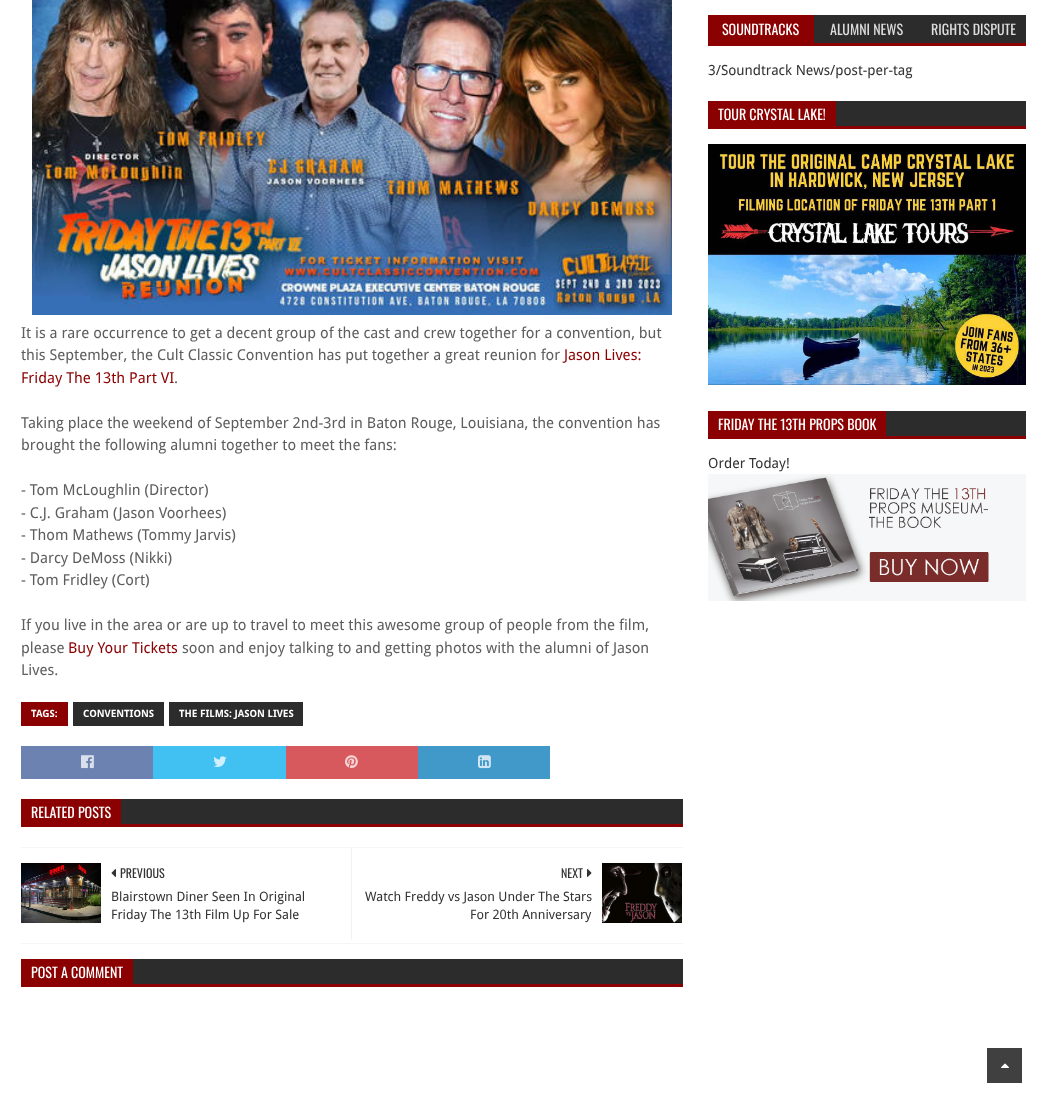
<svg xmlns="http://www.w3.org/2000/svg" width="1047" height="1108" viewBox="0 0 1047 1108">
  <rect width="100%" height="100%" fill="#fff"/>
  <path d="M814 15h212v28H814z" fill="#2c2c2c"/>
  <path d="M708 43h318v3H708z" fill="#8b0000"/>
  <path d="M708 15h106v28H708z" fill="#8b0000"/>
  <path d="M836 101h190v25H836z" fill="#2c2c2c"/>
  <path d="M708 126h318v3H708z" fill="#8b0000"/>
  <path d="M708 101h128v25H708z" fill="#8b0000"/>
  <image x="708" y="144" width="318" height="241" href="img/1.png"/>
  <path d="M886 411h140v25H886z" fill="#2c2c2c"/>
  <path d="M708 436h318v3H708z" fill="#8b0000"/>
  <path d="M708 411h178v25H708z" fill="#8b0000"/>
  <image x="708" y="474" width="318" height="127" href="img/2.png"/>
  <image x="32" y="0" width="640" height="315" href="img/3.png"/>
  <path d="M21 702h47v24H21z" fill="#8b0000"/>
  <path d="M73 702h91v24H73z" fill="#2c2c2c"/>
  <path d="M169 702h134v24H169z" fill="#2c2c2c"/>
  <path d="M21 746h132v33H21z" fill="#6c83b2"/>
  <image x="81" y="755" width="13" height="14" href="img/4.png"/>
  <path d="M153 746h133v33H153z" fill="#40c1f2"/>
  <image x="213" y="756" width="14" height="11" href="img/5.png"/>
  <path d="M286 746h132v33H286z" fill="#d7595d"/>
  <image x="345" y="755" width="13" height="14" href="img/6.png"/>
  <path d="M418 746h132v33H418z" fill="#4099c8"/>
  <image x="478" y="755" width="13" height="14" href="img/7.png"/>
  <path d="M121 799h562v25H121z" fill="#2c2c2c"/>
  <path d="M21 824h662v3H21z" fill="#8b0000"/>
  <path d="M21 799h100v25H21z" fill="#8b0000"/>
  <path d="M21 847h662v1H21z" fill="#f5f5f5"/>
  <path d="M21 943h662v1H21z" fill="#f5f5f5"/>
  <path d="M351 848h1v92H351z" fill="#f2f2f2"/>
  <image x="21" y="863" width="80" height="60" href="img/8.png"/>
  <image x="111" y="869" width="5" height="8" href="img/9.png"/>
  <image x="587" y="869" width="5" height="8" href="img/10.png"/>
  <image x="602" y="863" width="80" height="60" href="img/11.png"/>
  <path d="M133 959h550v25H133z" fill="#2c2c2c"/>
  <path d="M21 984h662v3H21z" fill="#8b0000"/>
  <path d="M21 959h112v25H21z" fill="#8b0000"/>
  <path d="M987 1048h35v35H987z" fill="#404040"/>
  <image x="1001" y="1063" width="8" height="5" href="img/12.png"/>
  <text x="722" y="35" font-family="Oswald" font-size="14" fill="#fff">SOUNDTRACKS</text>
  <g font-family="Oswald" font-size="14" fill="#ddd">
    <text x="830" y="35">ALUMNI NEWS</text>
    <text x="931" y="35">RIGHTS DISPUTE</text>
  </g>
  <text x="708" y="75" font-family="Droid Sans" font-size="14" fill="#333">3/Soundtrack News/post-per-tag</text>
  <g font-family="Oswald" font-size="14" fill="#fff">
    <text x="718" y="120">TOUR CRYSTAL LAKE!</text>
    <text x="718" y="430">FRIDAY THE 13TH PROPS BOOK</text>
  </g>
  <text x="708" y="468" font-family="Droid Sans" font-size="14" fill="#333">Order Today!</text>
  <g font-family="Droid Sans" font-size="15" fill="#5e5e5e">
    <text x="21" y="338">It is a rare occurrence to get a decent group of the cast and crew together for a convention, but</text>
    <text x="21" y="360">this September, the Cult Classic Convention has put together a great reunion for</text>
  </g>
  <g font-family="Droid Sans" font-size="15" fill="#8b0000">
    <text x="564" y="360">Jason Lives:</text>
    <text x="21" y="383">Friday The 13th Part VI</text>
  </g>
  <g font-family="Droid Sans" font-size="15" fill="#5e5e5e">
    <text x="174" y="383">.</text>
    <text x="21" y="428">Taking place the weekend of September 2nd-3rd in Baton Rouge, Louisiana, the convention has</text>
    <text x="21" y="450">brought the following alumni together to meet the fans:</text>
    <text x="21" y="495">- Tom McLoughlin (Director)</text>
    <text x="21" y="518">- C.J. Graham (Jason Voorhees)</text>
    <text x="21" y="540">- Thom Mathews (Tommy Jarvis)</text>
    <text x="21" y="563">- Darcy DeMoss (Nikki)</text>
    <text x="21" y="585">- Tom Fridley (Cort)</text>
    <text x="21" y="630">If you live in the area or are up to travel to meet this awesome group of people from the film,</text>
    <text x="21" y="653">please</text>
  </g>
  <text x="68" y="653" font-family="Droid Sans" font-size="15" fill="#8b0000">Buy Your Tickets</text>
  <g font-family="Droid Sans" font-size="15" fill="#5e5e5e">
    <text x="182" y="653">soon and enjoy talking to and getting photos with the alumni of Jason</text>
    <text x="21" y="675">Lives.</text>
  </g>
  <g font-family="Droid Sans" font-size="10" font-weight="bold" fill="#fff">
    <text x="31" y="717">TAGS:</text>
    <text x="83" y="717">CONVENTIONS</text>
    <text x="179" y="717">THE FILMS: JASON LIVES</text>
  </g>
  <text x="31" y="818" font-family="Oswald" font-size="14" fill="#fff">RELATED POSTS</text>
  <text x="120" y="878" font-family="Oswald" font-size="12" fill="#333">PREVIOUS</text>
  <g font-family="Droid Sans" font-size="13" fill="#333">
    <text x="111" y="901">Blairstown Diner Seen In Original</text>
    <text x="111" y="919">Friday The 13th Film Up For Sale</text>
  </g>
  <text x="561" y="878" font-family="Oswald" font-size="12" fill="#333">NEXT</text>
  <g font-family="Droid Sans" font-size="13" fill="#333">
    <text x="365" y="901">Watch Freddy vs Jason Under The Stars</text>
    <text x="470" y="919">For 20th Anniversary</text>
  </g>
  <text x="31" y="978" font-family="Oswald" font-size="14" fill="#fff">POST A COMMENT</text>
</svg>
